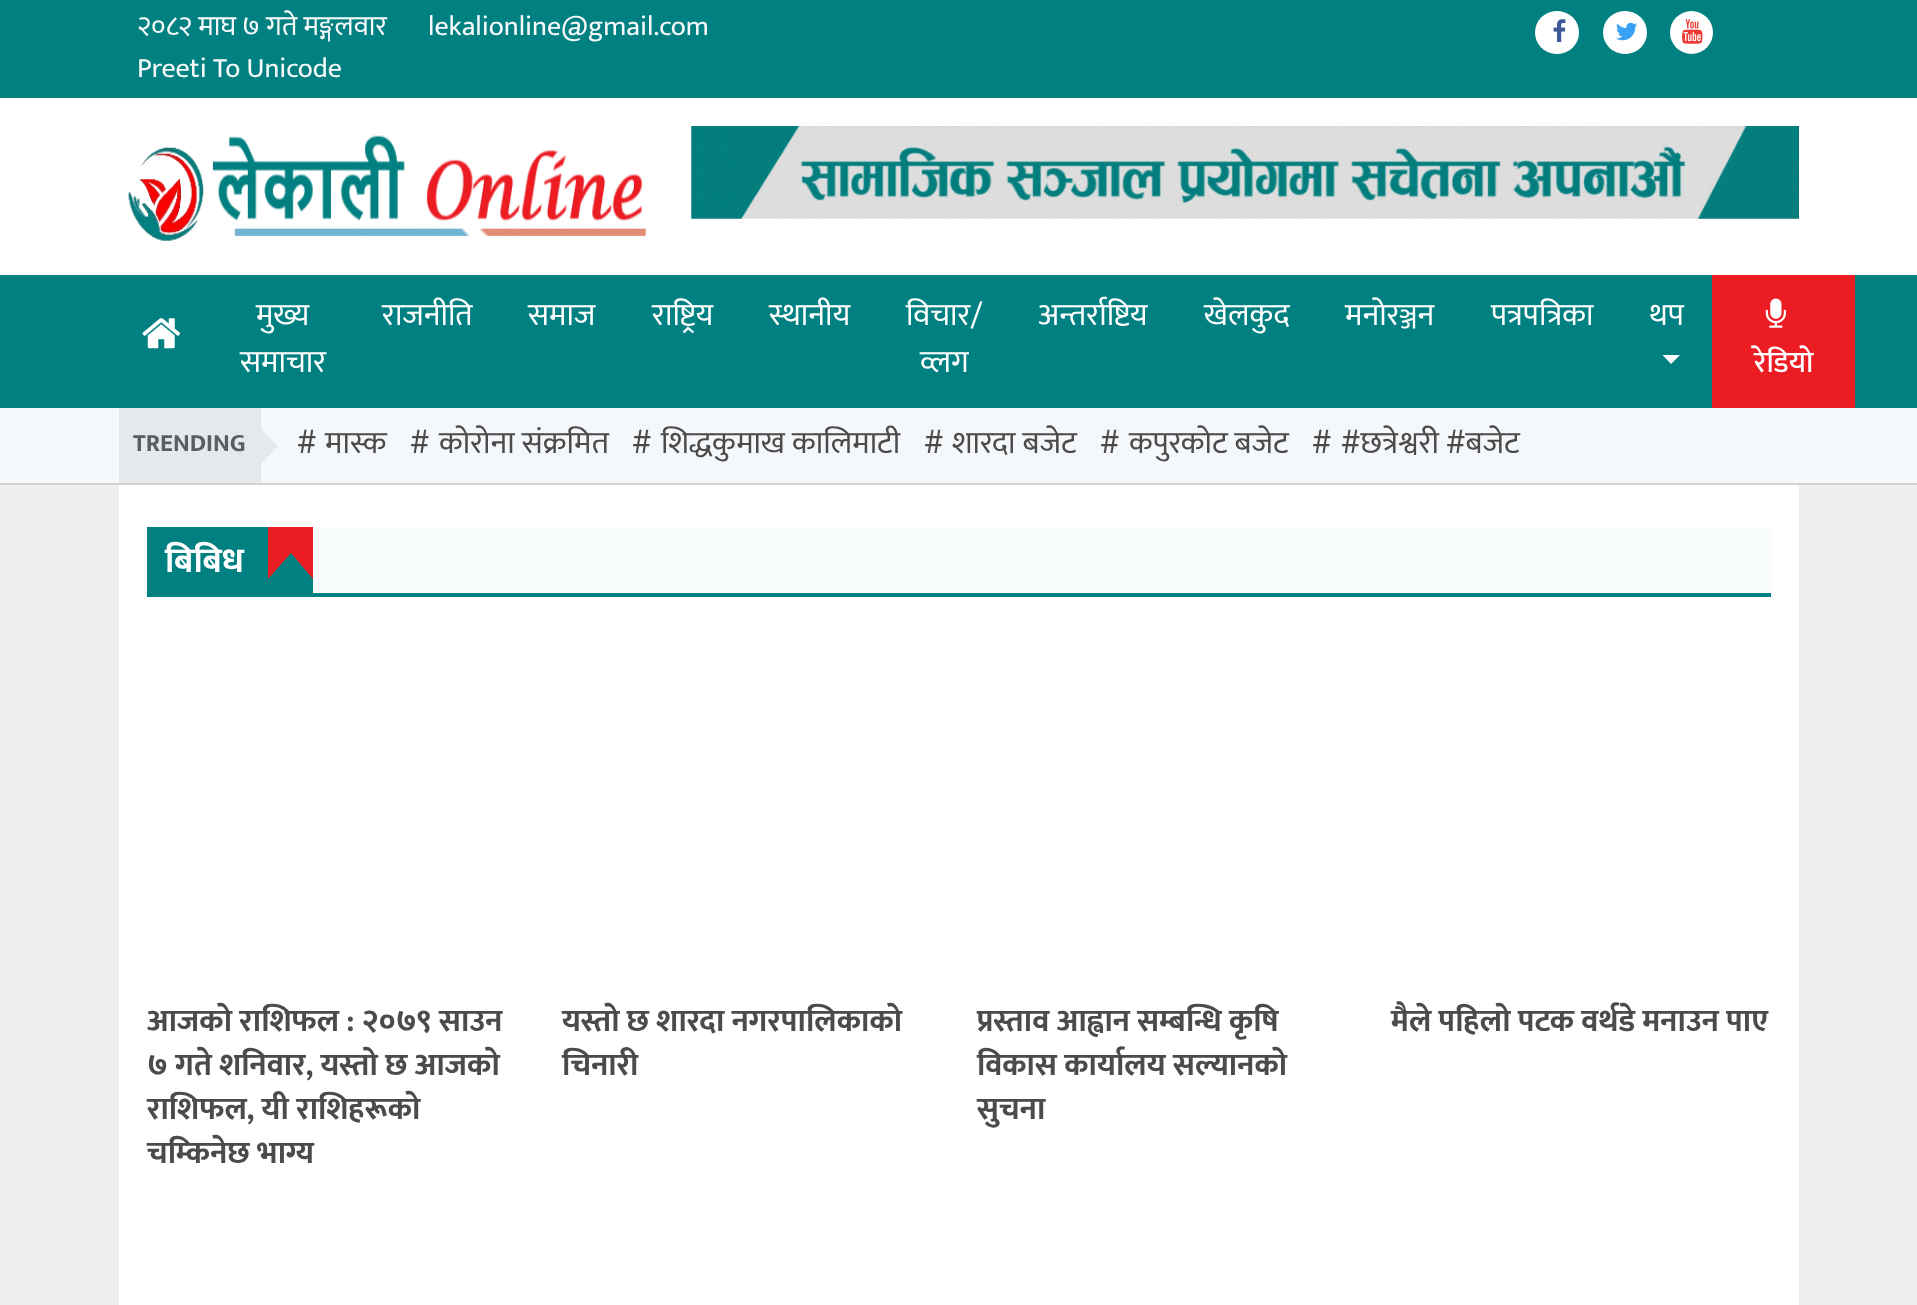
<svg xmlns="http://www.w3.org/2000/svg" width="1917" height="1305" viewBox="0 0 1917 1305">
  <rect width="100%" height="100%" fill="#f0efef"/>
  <path d="M0 0h1917v98H0z" fill="#008080"/>
  <rect x="1535" y="11" width="44" height="43" rx="21.5" fill="#fff"/>
  <image x="1553" y="19" width="13" height="23" href="img/1.png"/>
  <rect x="1603" y="11" width="44" height="43" rx="21.5" fill="#fff"/>
  <image x="1616" y="22" width="22" height="19" href="img/2.png"/>
  <circle cx="1691.5" cy="32.5" r="21.5" fill="#fff"/>
  <image x="1682" y="19" width="21" height="25" href="img/3.png"/>
  <path d="M0 98h1917v177H0z" fill="#fff"/>
  <image x="128" y="135" width="518" height="106" href="img/4.png"/>
  <image x="691" y="126" width="1108" height="93" href="img/5.png"/>
  <path d="M0 275h1917v133H0z" fill="#008080"/>
  <image x="142" y="318" width="39" height="31" href="img/6.png"/>
  <path d="M1662.5 355H1680L1671 364Z" fill="#fff"/>
  <path d="M1712 275h143v133H1712z" fill="#ec1c23"/>
  <image x="1765" y="298" width="21" height="30" href="img/7.png"/>
  <path d="M0 408h1917v75H0z" fill="#f4f8fb"/>
  <path d="M0 483h1917v2H0z" fill="#d2d5d8"/>
  <path d="M119 408h142v75H119z" fill="#e5e9ec"/>
  <path d="M261 464V429L278 446Z" fill="#e5e9ec"/>
  <path d="M119 485h1680v820H119z" fill="#fff"/>
  <path d="M313 527h1458v66H313z" fill="#f8fcfc"/>
  <path d="M147 593h1624v4H147z" fill="#008080"/>
  <path d="M147 527h166v66H147z" fill="#008080"/>
  <path d="M268 579V527L291 553Z" fill="#ec1c23"/>
  <path d="M268 527h45v26H268z" fill="#ec1c23"/>
  <path d="M313 527V579L291 553Z" fill="#ec1c23"/>
  <g font-family="Mukta" font-size="28" fill="#f8f9fa">
    <text x="137" y="35">२०८२ माघ ७ गते मङ्गलवार</text>
    <text x="428" y="35">lekalionline@gmail.com</text>
    <text x="137" y="77">Preeti To Unicode</text>
  </g>
  <g font-family="Mukta" font-size="31.5" fill="#fff">
    <text x="256" y="325">मुख्य</text>
    <text x="240" y="372">समाचार</text>
    <text x="382" y="325">राजनीति</text>
    <text x="528" y="325">समाज</text>
    <text x="652" y="325">राष्ट्रिय</text>
    <text x="769" y="325">स्थानीय</text>
    <text x="906" y="325">विचार/</text>
    <text x="920" y="372">व्लग</text>
    <text x="1038" y="325">अन्तर्राष्टिय</text>
    <text x="1204" y="325">खेलकुद</text>
    <text x="1345" y="325">मनोरञ्जन</text>
    <text x="1491" y="325">पत्रपत्रिका</text>
    <text x="1649" y="325">थप</text>
  </g>
  <text x="1754" y="372" font-family="Mukta" font-size="30" font-weight="500" fill="#fff">रेडियो</text>
  <text x="133" y="451" font-family="Mukta" font-size="25" font-weight="bold" fill="#5c5d5e">TRENDING</text>
  <g font-family="Mukta" font-size="31.5" fill="#4c4a4a">
    <text x="297" y="453">#</text>
    <text x="325" y="453">मास्क</text>
    <text x="410" y="453">#</text>
    <text x="439" y="453">कोरोना संक्रमित</text>
    <text x="632" y="453">#</text>
    <text x="661" y="453">शिद्धकुमाख कालिमाटी</text>
    <text x="924" y="453">#</text>
    <text x="952" y="453">शारदा बजेट</text>
    <text x="1100" y="453">#</text>
    <text x="1129" y="453">कपुरकाेट बजेट</text>
    <text x="1312" y="453">#</text>
    <text x="1341" y="453">#छत्रेश्वरी #बजेट</text>
  </g>
  <text x="165" y="572" font-family="Mukta" font-size="35" font-weight="bold" fill="#fff">बिबिध</text>
  <g font-family="Mukta" font-size="31.5" font-weight="bold" fill="#4c4a4a">
    <text x="147" y="1031">आजको राशिफल : २०७९ साउन</text>
    <text x="147" y="1075">७ गते शनिवार, यस्तो छ आजको</text>
    <text x="147" y="1119">राशिफल, यी राशिहरूकाे</text>
    <text x="147" y="1163">चम्किनेछ भाग्य</text>
    <text x="562" y="1031">यस्ताे छ शारदा नगरपालिकाको</text>
    <text x="562" y="1075">चिनारी</text>
    <text x="977" y="1031">प्रस्ताव आह्वान सम्बन्धि कृषि</text>
    <text x="977" y="1075">विकास कार्यालय सल्यानकाे</text>
    <text x="977" y="1119">सुचना</text>
    <text x="1391" y="1031">मैले पहिलो पटक वर्थडे मनाउन पाए</text>
  </g>
</svg>
